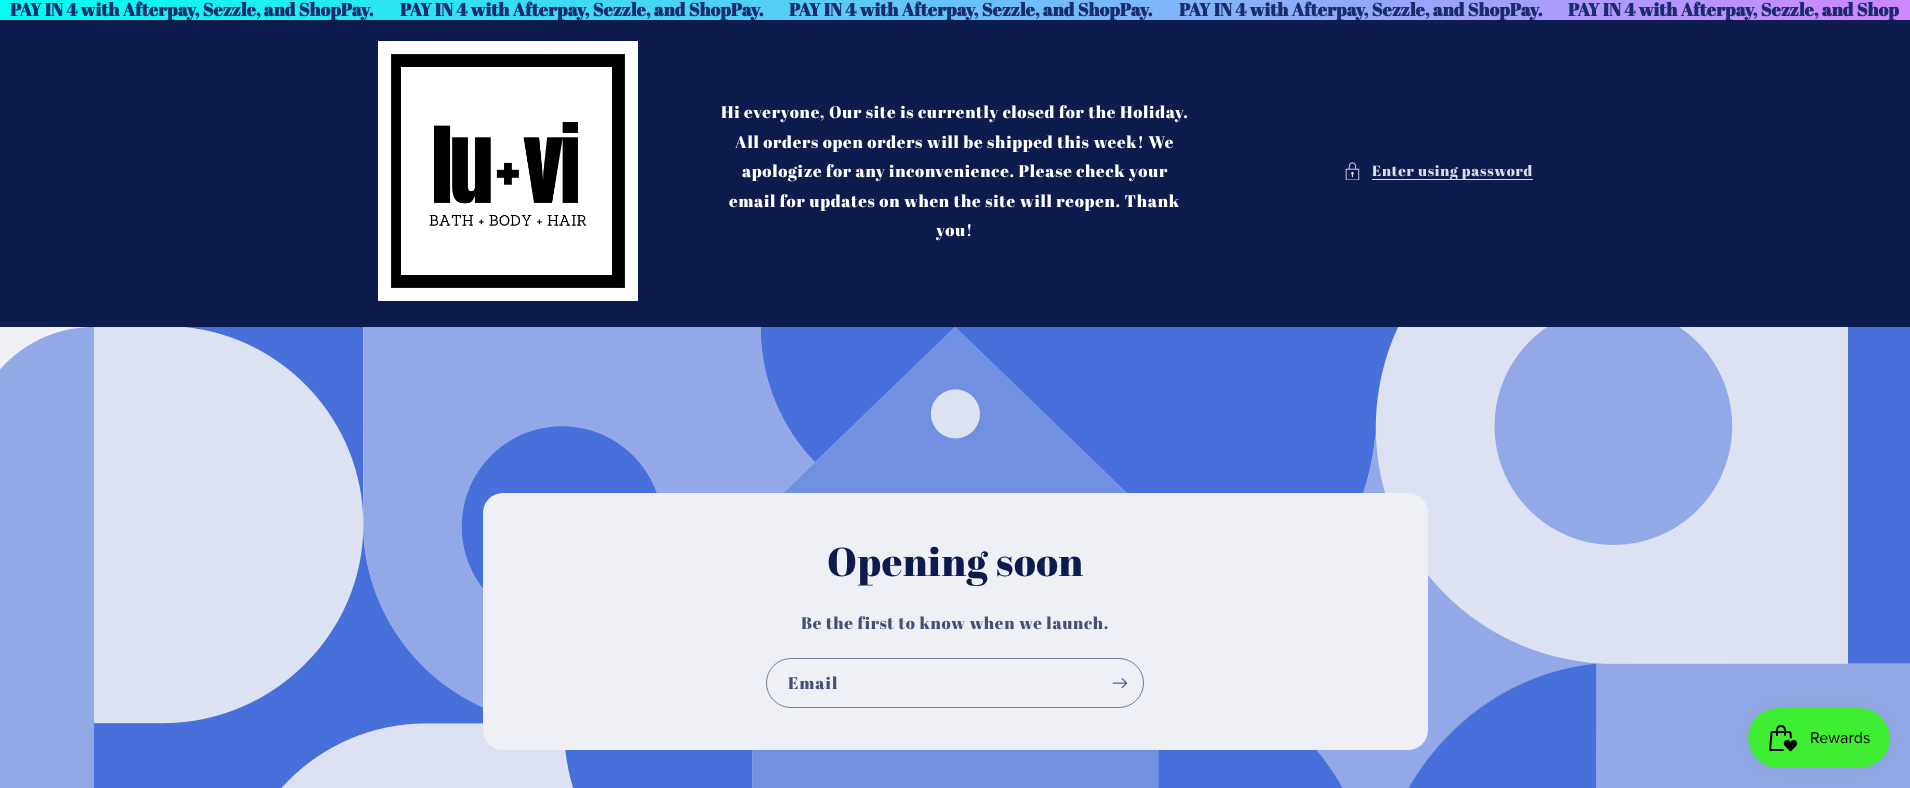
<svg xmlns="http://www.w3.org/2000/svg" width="1910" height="788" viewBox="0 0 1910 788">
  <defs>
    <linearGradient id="g1" gradientUnits="userSpaceOnUse" x1="754" y1="-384" x2="1156" y2="404"><stop offset="0" stop-color="#00fff0"/><stop offset="1" stop-color="#d285ff"/></linearGradient>
    <clipPath id="clip1"><path d="M10 0h1890v20H10z"/></clipPath>
  </defs>
  <rect width="100%" height="100%" fill="#eff0f5"/>
  <path d="M0 0h1910v20H0z" fill="url(#g1)"/>
  <path d="M0 20h1910v307H0z" fill="#0e1b4d"/>
  <image x="378" y="41" width="260" height="260" href="img/1.png"/>
  <image x="1345" y="162" width="15" height="18" href="img/2.png"/>
  <path d="M1372 179h161v1H1372z" fill="#dbdde4"/>
  <image x="0" y="327" width="1910" height="461" href="img/3.png"/>
  <rect x="483" y="493" width="945" height="257" rx="20" fill="#eff0f5"/>
  <rect x="766.5" y="658.5" width="377" height="49" rx="24.5" fill="none" stroke="#737b99"/>
  <image x="1112" y="678" width="16" height="11" href="img/4.png"/>
  <rect x="1748" y="708" width="142" height="60" rx="30" fill="#0000000d" filter="blur(12.5px)"/>
  <image x="1748" y="708" width="142" height="60" href="img/5.png"/>
  <g clip-path="url(#clip1)">
    <g font-family="Abril Fatface" font-size="18" font-weight="bold" fill="#192c6b">
      <text x="10" y="16">PAY IN 4 with Afterpay, Sezzle, and ShopPay.</text>
      <text x="400" y="16">PAY IN 4 with Afterpay, Sezzle, and ShopPay.</text>
      <text x="789" y="16">PAY IN 4 with Afterpay, Sezzle, and ShopPay.</text>
      <text x="1179" y="16">PAY IN 4 with Afterpay, Sezzle, and ShopPay.</text>
      <text x="1568" y="16">PAY IN 4 with Afterpay, Sezzle, and Shop</text>
    </g>
  </g>
  <g font-family="Abril Fatface" font-size="16.8" letter-spacing="0.73" fill="#fff">
    <text x="721" y="118">Hi everyone, Our site is currently closed for the Holiday.</text>
    <text x="735" y="148">All orders open orders will be shipped this week! We</text>
    <text x="742" y="177">apologize for any inconvenience. Please check your</text>
    <text x="729" y="207">email for updates on when the site will reopen. Thank</text>
    <text x="936" y="236">you!</text>
  </g>
  <text x="1372" y="176" font-family="Abril Fatface" font-size="14.75" letter-spacing="0.73" fill="#dbdde5">Enter using password</text>
  <text x="827" y="576" font-family="Abril Fatface" font-size="40" letter-spacing="0.6" fill="#0e1b4d">Opening soon</text>
  <text x="801" y="629" font-family="Abril Fatface" font-size="16.8" letter-spacing="0.73" fill="#465077">Be the first to know when we launch.</text>
  <text x="788" y="689" font-family="Abril Fatface" font-size="16.8" letter-spacing="1" fill="#465077">Email</text>
</svg>
